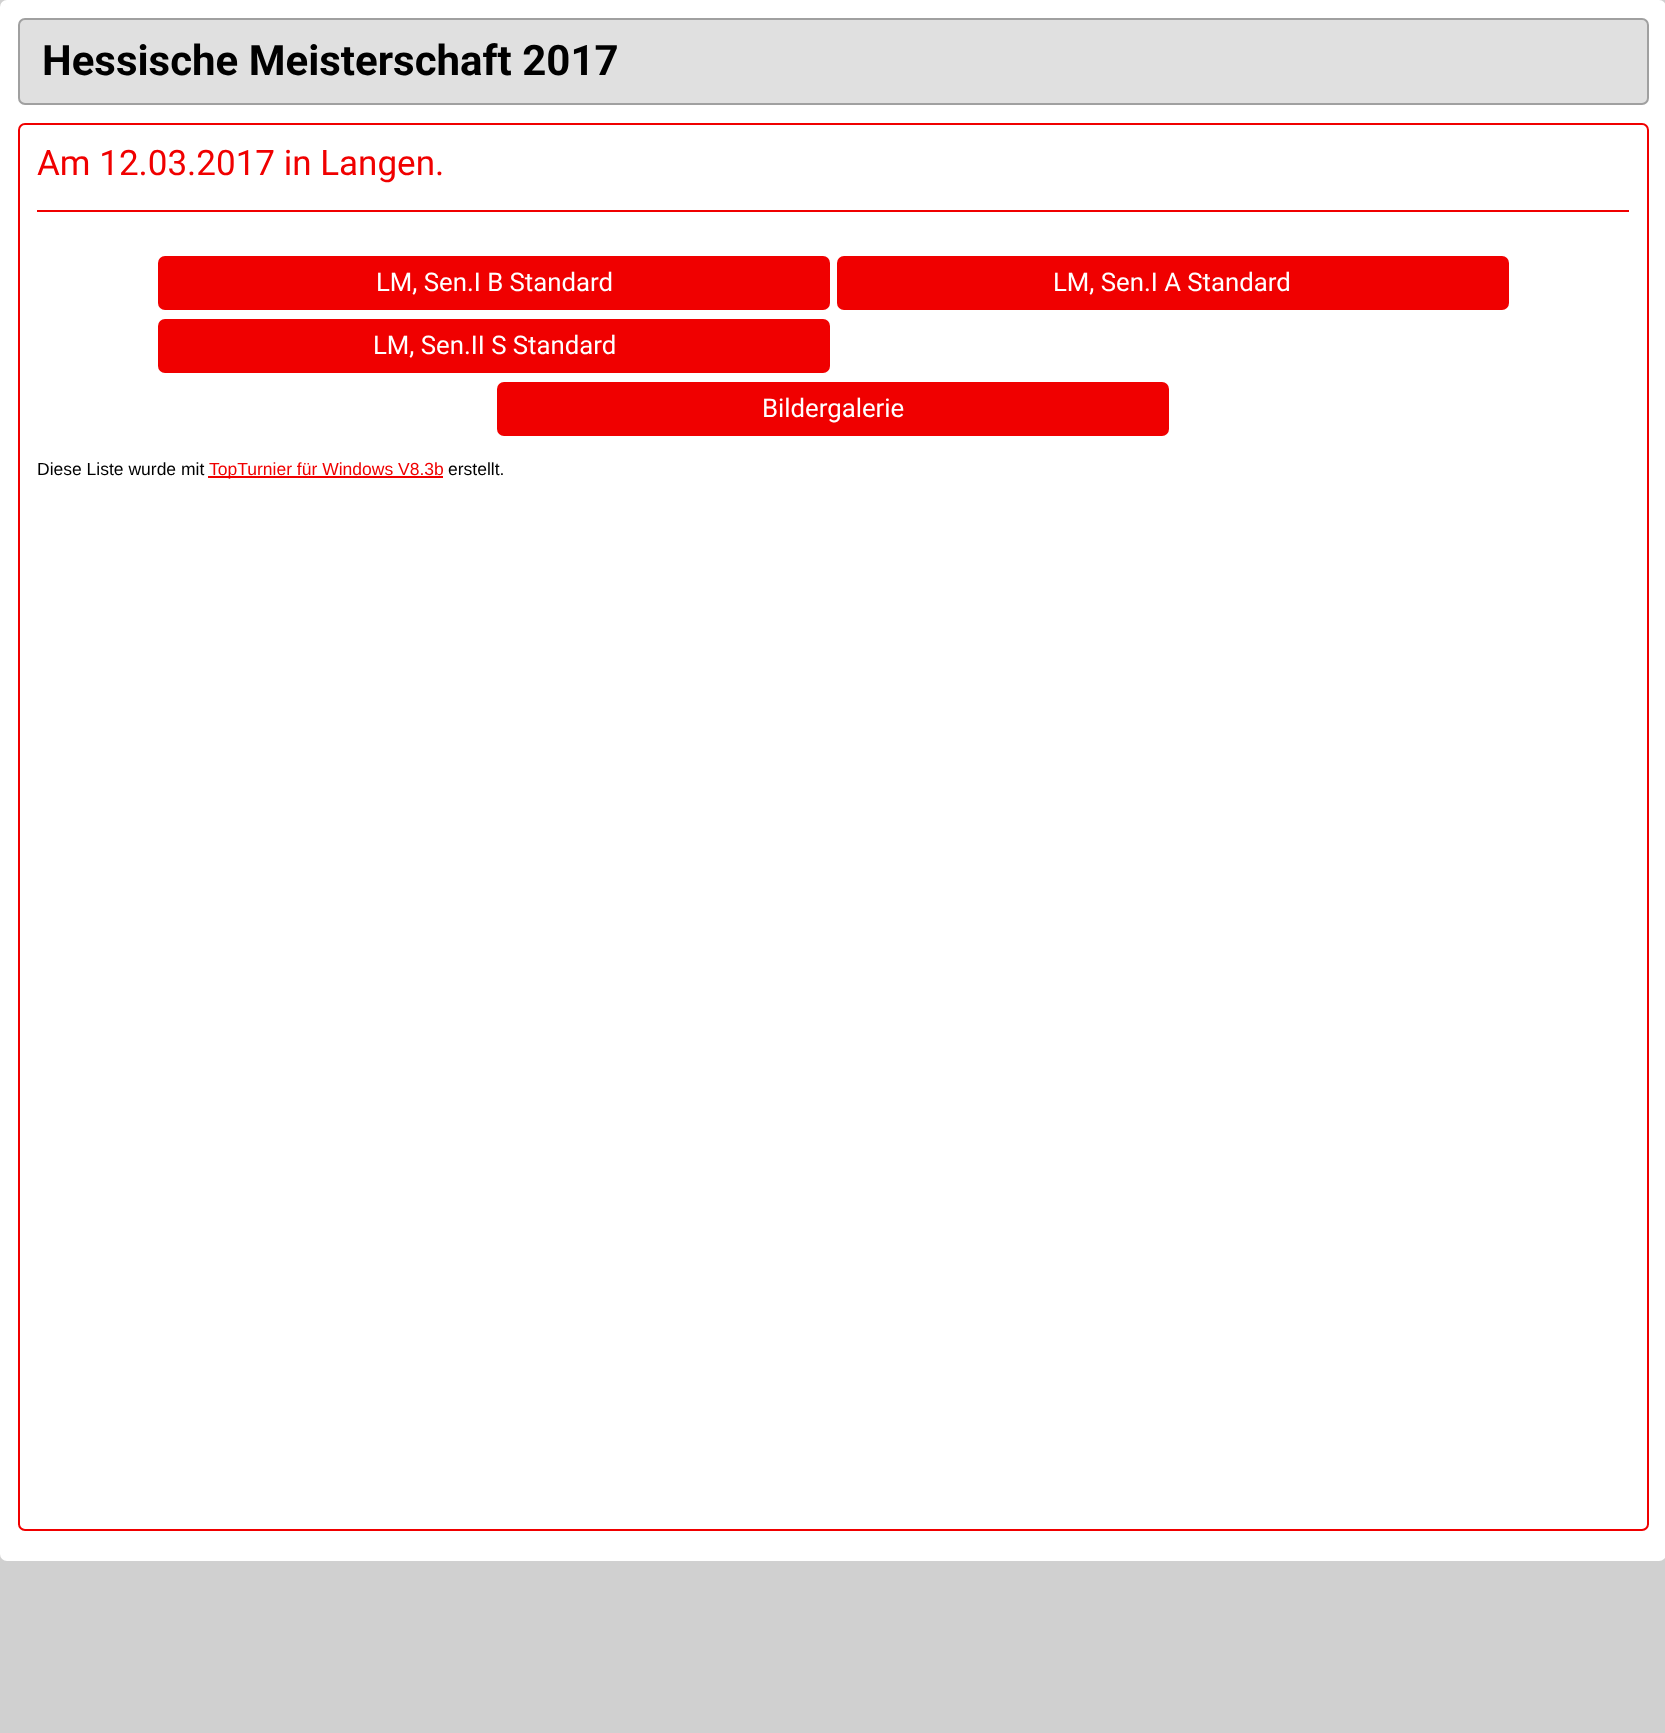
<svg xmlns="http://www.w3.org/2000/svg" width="1665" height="1733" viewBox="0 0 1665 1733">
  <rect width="100%" height="100%" fill="#d0d0d0"/>
  <rect width="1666" height="1561" rx="7" fill="#fff"/>
  <rect x="19" y="19" width="1629" height="85" rx="6" fill="#e0e0e0" stroke="#a0a0a0" stroke-width="2"/>
  <rect x="19" y="124" width="1629" height="1406" rx="6" fill="none" stroke="#f00000" stroke-width="2"/>
  <path d="M37 210h1592v2H37z" fill="#f00000"/>
  <rect x="158" y="256" width="672" height="54" rx="7" fill="#f00000"/>
  <rect x="837" y="256" width="672" height="54" rx="7" fill="#f00000"/>
  <rect x="158" y="319" width="672" height="54" rx="7" fill="#f00000"/>
  <rect x="497" y="382" width="672" height="54" rx="7" fill="#f00000"/>
  <path d="M208 476h235v2H208z" fill="#f00000"/>
  <text x="42" y="75" font-family="Roboto" font-size="42" font-weight="bold" fill="#000">Hessische Meisterschaft 2017</text>
  <text x="37" y="175" font-family="Roboto" font-size="35" fill="#f00000">Am 12.03.2017 in Langen.</text>
  <g font-family="Roboto" font-size="25.75" fill="#fff">
    <text x="376" y="291">LM, Sen.I B Standard</text>
    <text x="1053" y="291">LM, Sen.I A Standard</text>
    <text x="373" y="354">LM, Sen.II S Standard</text>
    <text x="762" y="417">Bildergalerie</text>
  </g>
  <text x="37" y="475" font-family="Liberation Sans" font-size="17.5" fill="#000">Diese Liste wurde mit</text>
  <text x="209" y="475" font-family="Liberation Sans" font-size="17.5" fill="#f00000">TopTurnier für Windows V8.3b</text>
  <text x="448" y="475" font-family="Liberation Sans" font-size="17.5" fill="#000">erstellt.</text>
</svg>
